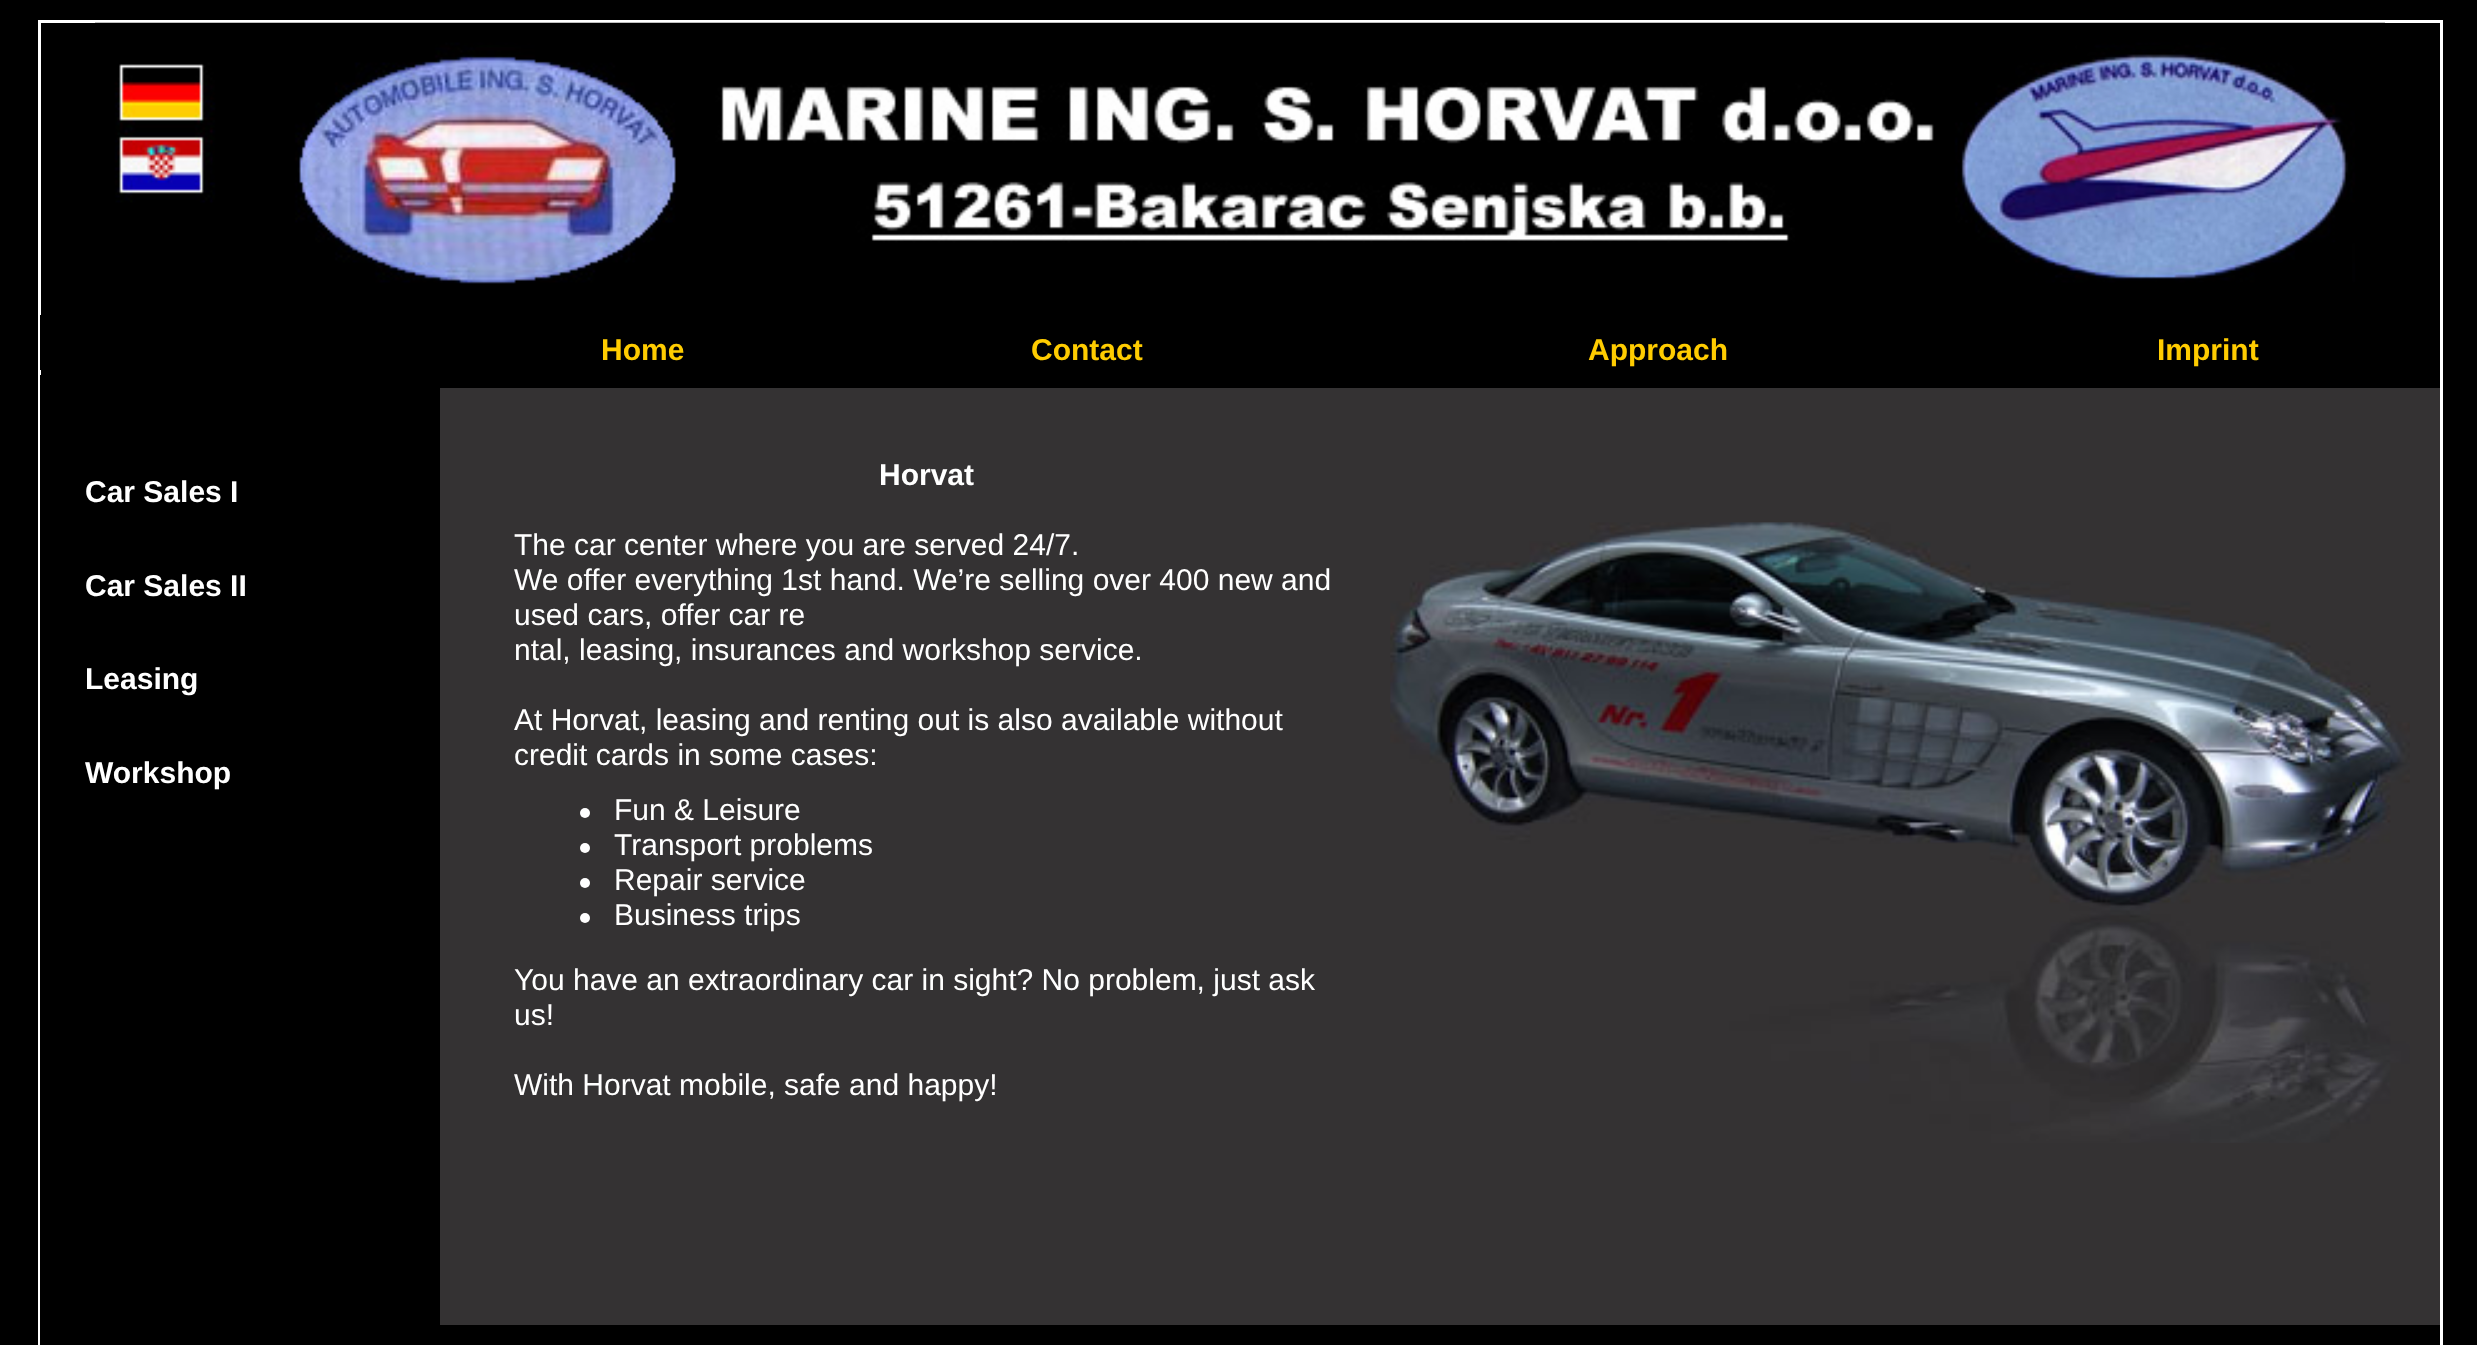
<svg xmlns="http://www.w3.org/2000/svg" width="2477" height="1345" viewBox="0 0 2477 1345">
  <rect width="100%" height="100%" fill="#000"/>
  <path d="M39.5 21.5h2402v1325H39.5z" fill="none" stroke="#fff" stroke-width="3"/>
  <image x="95" y="22" width="2290" height="262" href="img/1.png"/>
  <path d="M40 315h1v55H40z" fill="#000"/>
  <path d="M40 375h1v970H40z" fill="#000"/>
  <path d="M440 388h2000v937H440z" fill="#343233"/>
  <image x="1390" y="522" width="1020" height="621" href="img/2.png"/>
  <circle cx="585" cy="813" r="5" fill="#fff"/>
  <circle cx="585" cy="848" r="5" fill="#fff"/>
  <circle cx="585" cy="883" r="5" fill="#fff"/>
  <circle cx="585" cy="918" r="5" fill="#fff"/>
  <g font-family="Liberation Sans" font-size="30" font-weight="bold" fill="#fc0">
    <text x="601" y="360">Home</text>
    <text x="1031" y="360">Contact</text>
    <text x="1588" y="360">Approach</text>
    <text x="2157" y="360">Imprint</text>
  </g>
  <g font-family="Liberation Sans" font-size="30" font-weight="bold" fill="#fff">
    <text x="85" y="502">Car Sales I</text>
    <text x="85" y="596">Car Sales II</text>
    <text x="85" y="689">Leasing</text>
    <text x="85" y="783">Workshop</text>
    <text x="879" y="485">Horvat</text>
  </g>
  <g font-family="Liberation Sans" font-size="30" fill="#fff">
    <text x="514" y="555">The car center where you are served 24/7.</text>
    <text x="514" y="590">We offer everything 1st hand. We’re selling over 400 new and</text>
    <text x="514" y="625">used cars, offer car re</text>
    <text x="514" y="660">ntal, leasing, insurances and workshop service.</text>
    <text x="514" y="730">At Horvat, leasing and renting out is also available without</text>
    <text x="514" y="765">credit cards in some cases:</text>
    <text x="614" y="820">Fun &amp; Leisure</text>
    <text x="614" y="855">Transport problems</text>
    <text x="614" y="890">Repair service</text>
    <text x="614" y="925">Business trips</text>
    <text x="514" y="990">You have an extraordinary car in sight? No problem, just ask</text>
    <text x="514" y="1025">us!</text>
    <text x="514" y="1095">With Horvat mobile, safe and happy!</text>
  </g>
</svg>
